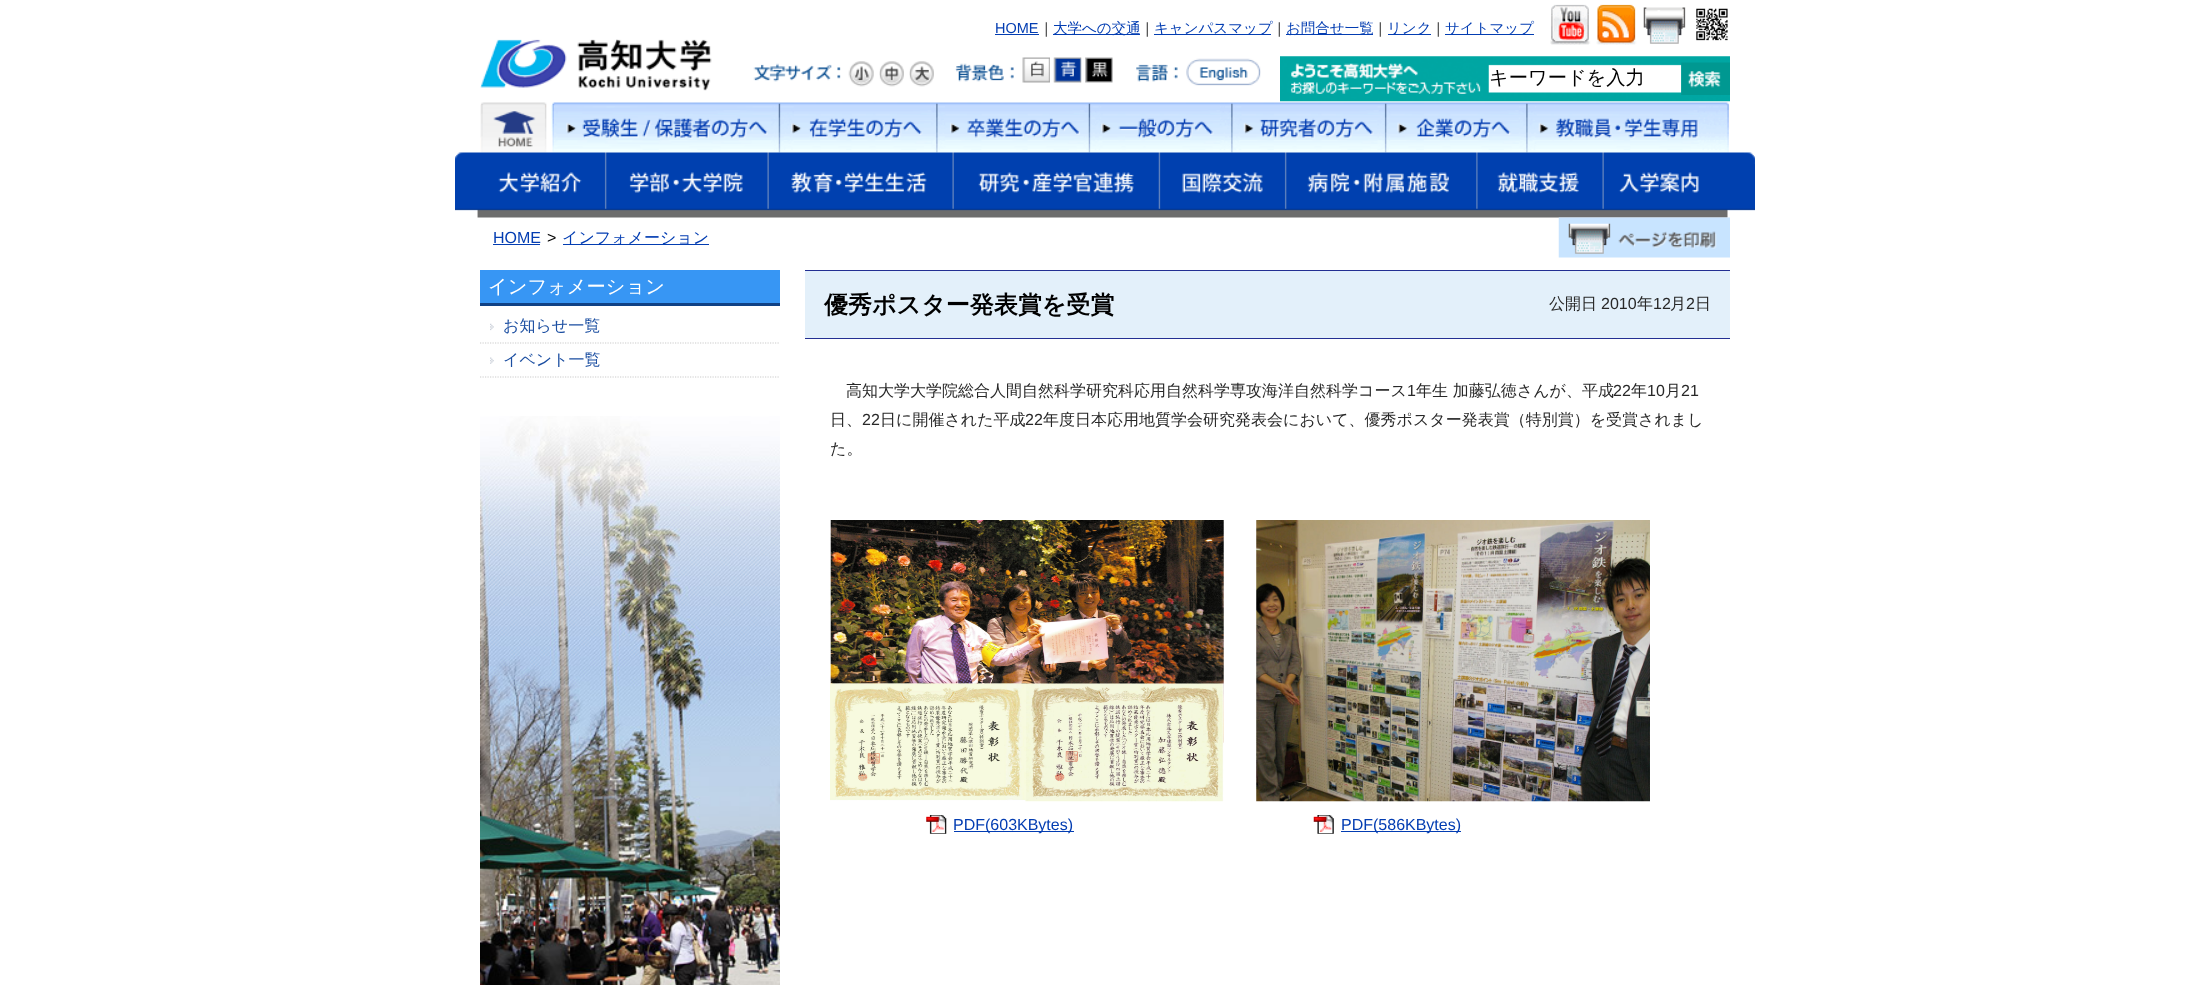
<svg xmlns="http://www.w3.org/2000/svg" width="2209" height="985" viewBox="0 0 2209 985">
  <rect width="100%" height="100%" fill="#fff"/>
  <path d="M995 34h44v1H995z" fill="#033db2"/>
  <path d="M1053 34h87v1H1053z" fill="#033db2"/>
  <path d="M1154 34h117v1H1154z" fill="#033db2"/>
  <path d="M1286 34h87v1H1286z" fill="#033db2"/>
  <path d="M1388 34h43v1H1388z" fill="#033db2"/>
  <path d="M1445 34h89v1H1445z" fill="#033db2"/>
  <image x="1550" y="4" width="178" height="41" href="img/1.png"/>
  <image x="480" y="39" width="232" height="52" href="img/2.png"/>
  <image x="753" y="63" width="88" height="19" href="img/3.png"/>
  <image x="848" y="61" width="26" height="26" href="img/4.png"/>
  <image x="879" y="61" width="25" height="26" href="img/5.png"/>
  <image x="909" y="61" width="25" height="26" href="img/6.png"/>
  <image x="955" y="63" width="59" height="19" href="img/7.png"/>
  <image x="1022" y="57" width="28" height="26" href="img/8.png"/>
  <image x="1053" y="57" width="29" height="26" href="img/9.png"/>
  <image x="1085" y="57" width="28" height="26" href="img/10.png"/>
  <image x="1136" y="58" width="125" height="28" href="img/11.png"/>
  <image x="1280" y="56" width="450" height="46" href="img/12.png"/>
  <image x="1681" y="62" width="49" height="33" href="img/13.png"/>
  <image x="480" y="102" width="1250" height="51" href="img/14.png"/>
  <image x="455" y="152" width="1300" height="66" href="img/15.png"/>
  <path d="M493 244h47v1H493z" fill="#033db2"/>
  <path d="M563 244h146v1H563z" fill="#033db2"/>
  <image x="1558" y="217" width="172" height="41" href="img/16.png"/>
  <path d="M480 270h300v33H480z" fill="#3796f4"/>
  <path d="M480 303h300v3H480z" fill="#0f4185"/>
  <path d="M480 343H780" fill="none" stroke="#ccc" stroke-width="1.2" stroke-dasharray="1.25 1.25"/>
  <image x="490" y="323" width="4" height="8" href="img/17.png"/>
  <path d="M480 377H780" fill="none" stroke="#ccc" stroke-width="1.2" stroke-dasharray="1.25 1.25"/>
  <image x="490" y="357" width="4" height="7" href="img/18.png"/>
  <image x="480" y="416" width="300" height="569" href="img/19.png"/>
  <path d="M805 271h925v67H805z" fill="#e3f0fa"/>
  <path d="M805 270h925v1H805z" fill="#232f92"/>
  <path d="M805 338h925v1H805z" fill="#232f92"/>
  <image x="830" y="520" width="394" height="282" href="img/20.png"/>
  <image x="1256" y="520" width="394" height="282" href="img/21.png"/>
  <image x="926" y="815" width="21" height="19" href="img/22.png"/>
  <path d="M954 831h120v1H954z" fill="#033db2"/>
  <image x="1313" y="815" width="21" height="19" href="img/23.png"/>
  <path d="M1341 831h120v1H1341z" fill="#033db2"/>
  <text x="995" y="33" font-family="Liberation Sans" font-size="14.5" fill="#033db2">HOME</text>
  <text x="1039" y="33" font-family="WenQuanYi Zen Hei" font-size="14.5" font-weight="500" fill="#000">｜</text>
  <text x="1053" y="33" font-family="WenQuanYi Zen Hei" font-size="14.5" font-weight="500" fill="#033db2">大学への交通</text>
  <text x="1140" y="33" font-family="WenQuanYi Zen Hei" font-size="14.5" font-weight="500" fill="#000">｜</text>
  <text x="1154" y="33" font-family="WenQuanYi Zen Hei" font-size="14.5" font-weight="500" fill="#033db2">キャンパスマップ</text>
  <text x="1272" y="33" font-family="WenQuanYi Zen Hei" font-size="14.5" font-weight="500" fill="#000">｜</text>
  <text x="1286" y="33" font-family="WenQuanYi Zen Hei" font-size="14.5" font-weight="500" fill="#033db2">お問合せ一覧</text>
  <text x="1373" y="33" font-family="WenQuanYi Zen Hei" font-size="14.5" font-weight="500" fill="#000">｜</text>
  <text x="1387" y="33" font-family="WenQuanYi Zen Hei" font-size="14.5" font-weight="500" fill="#033db2">リンク</text>
  <text x="1431" y="33" font-family="WenQuanYi Zen Hei" font-size="14.5" font-weight="500" fill="#000">｜</text>
  <text x="1445" y="33" font-family="WenQuanYi Zen Hei" font-size="14.5" font-weight="500" fill="#033db2">サイトマップ</text>
  <text x="1489" y="84" font-family="WenQuanYi Zen Hei" font-size="19.25" font-weight="500" fill="#000">キーワードを入力</text>
  <text x="493" y="243" font-family="Liberation Sans" font-size="16" fill="#033db2">HOME</text>
  <text x="547" y="243" font-family="Liberation Sans" font-size="16" fill="#000">&gt;</text>
  <text x="562" y="243" font-family="WenQuanYi Zen Hei" font-size="16" font-weight="500" fill="#033db2">インフォメーション</text>
  <text x="488" y="293" font-family="WenQuanYi Zen Hei" font-size="19.25" font-weight="500" fill="#fff">インフォメーション</text>
  <g font-family="WenQuanYi Zen Hei" font-size="16" font-weight="500" fill="#1b4ea1">
    <text x="503" y="331">お知らせ一覧</text>
    <text x="503" y="365">イベント一覧</text>
  </g>
  <text x="824" y="313" font-family="WenQuanYi Zen Hei" font-size="24" font-weight="bold" fill="#000">優秀ポスター発表賞を受賞</text>
  <text x="1549" y="309" font-family="WenQuanYi Zen Hei" font-size="16" font-weight="500" fill="#282828">公開日</text>
  <text x="1601" y="309" font-family="Liberation Sans" font-size="16" fill="#282828">2010</text>
  <text x="1637" y="309" font-family="WenQuanYi Zen Hei" font-size="16" font-weight="500" fill="#282828">年</text>
  <text x="1653" y="309" font-family="Liberation Sans" font-size="16" fill="#282828">12</text>
  <text x="1670" y="309" font-family="WenQuanYi Zen Hei" font-size="16" font-weight="500" fill="#282828">月</text>
  <text x="1686" y="309" font-family="Liberation Sans" font-size="16" fill="#282828">2</text>
  <g font-family="WenQuanYi Zen Hei" font-size="16" font-weight="500" fill="#282828">
    <text x="1695" y="309">日</text>
    <text x="846" y="396">高知大学大学院総合人間自然科学研究科応用自然科学専攻海洋自然科学コース</text>
  </g>
  <text x="1407" y="396" font-family="Liberation Sans" font-size="16" fill="#282828">1</text>
  <text x="1416" y="396" font-family="WenQuanYi Zen Hei" font-size="16" font-weight="500" fill="#282828">年生 加藤弘徳さんが、平成</text>
  <text x="1613" y="396" font-family="Liberation Sans" font-size="16" fill="#282828">22</text>
  <text x="1631" y="396" font-family="WenQuanYi Zen Hei" font-size="16" font-weight="500" fill="#282828">年</text>
  <text x="1647" y="396" font-family="Liberation Sans" font-size="16" fill="#282828">10</text>
  <text x="1665" y="396" font-family="WenQuanYi Zen Hei" font-size="16" font-weight="500" fill="#282828">月</text>
  <text x="1681" y="396" font-family="Liberation Sans" font-size="16" fill="#282828">21</text>
  <text x="830" y="425" font-family="WenQuanYi Zen Hei" font-size="16" font-weight="500" fill="#282828">日、</text>
  <text x="862" y="425" font-family="Liberation Sans" font-size="16" fill="#282828">22</text>
  <text x="880" y="425" font-family="WenQuanYi Zen Hei" font-size="16" font-weight="500" fill="#282828">日に開催された平成</text>
  <text x="1025" y="425" font-family="Liberation Sans" font-size="16" fill="#282828">22</text>
  <g font-family="WenQuanYi Zen Hei" font-size="16" font-weight="500" fill="#282828">
    <text x="1043" y="425">年度日本応用地質学会研究発表会において、優秀ポスター発表賞（特別賞）を受賞されまし</text>
    <text x="830" y="454">た。</text>
  </g>
  <g font-family="Liberation Sans" font-size="16" fill="#033db2">
    <text x="953" y="830">PDF(603KBytes)</text>
    <text x="1341" y="830">PDF(586KBytes)</text>
  </g>
</svg>
